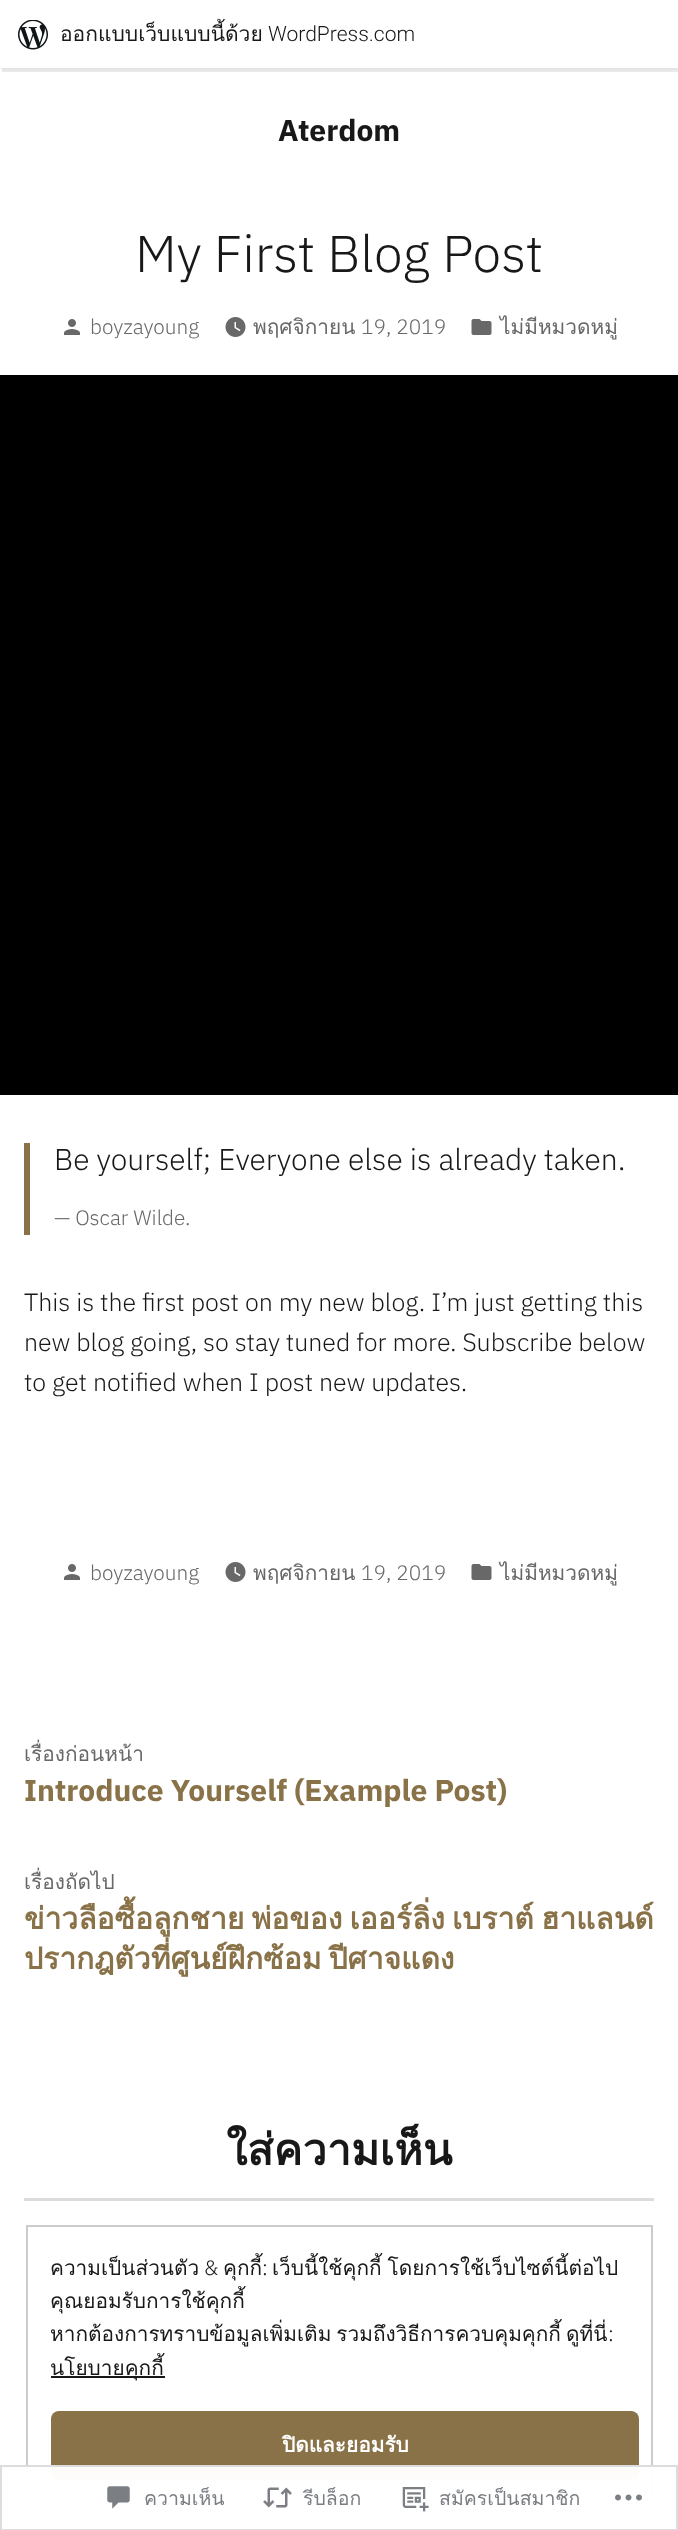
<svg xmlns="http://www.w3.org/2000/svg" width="678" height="2530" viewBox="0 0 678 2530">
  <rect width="100%" height="100%" fill="#fff"/>
  <path d="M0 2h678v67H0z" fill="#0000000d" filter="blur(1.5px)"/>
  <path d="M2 68V72H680V5H678V68Z" fill="#00000014"/>
  <path d="M0 1h678v67H0z" fill="#fff"/>
  <image x="18" y="20" width="30" height="30" href="img/1.png"/>
  <image x="64" y="319" width="16" height="16" href="img/2.png"/>
  <image x="225" y="317" width="21" height="20" href="img/3.png"/>
  <image x="471" y="319" width="21" height="16" href="img/4.png"/>
  <path d="M0 375h678v720H0z" fill="#000"/>
  <path d="M24 1143h6v92H24z" fill="#897248"/>
  <image x="64" y="1564" width="16" height="16" href="img/2.png"/>
  <image x="225" y="1562" width="21" height="20" href="img/3.png"/>
  <image x="471" y="1564" width="21" height="16" href="img/4.png"/>
  <path d="M24 2198h630v3H24z" fill="#dcdcde"/>
  <path d="M27 2226h625v278H27z" fill="none" stroke="#ccc" stroke-width="2"/>
  <path d="M51 2376h114v2H51z" fill="#181818"/>
  <rect x="51" y="2411" width="588" height="69" rx="8" fill="#897248"/>
  <path d="M26 2465h627v40H26z" fill="#fffffffa"/>
  <path d="M1 2466h676v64H1z" fill="none" stroke="#dcdcdefa" stroke-width="2"/>
  <image x="107" y="2486" width="23" height="23" href="img/5.png"/>
  <image x="263" y="2487" width="29" height="21" href="img/6.png"/>
  <image x="402" y="2487" width="27" height="25" href="img/7.png"/>
  <image x="615" y="2494" width="27" height="7" href="img/8.png"/>
  <text x="60" y="41" font-family="Loma" font-size="21" fill="#181818">ออกแบบเว็บแบบนี้ด้วย</text>
  <text x="268" y="41" font-family="Roboto" font-size="21" font-weight="300" fill="#181818">WordPress.com</text>
  <text x="278" y="141" font-family="IBM Plex Sans" font-size="30" font-weight="bold" fill="#181818">Aterdom</text>
  <text x="135" y="272" font-family="IBM Plex Sans" font-size="51.75" font-weight="300" fill="#181818">My First Blog Post</text>
  <text x="90" y="334" font-family="IBM Plex Sans" font-size="20.8" font-weight="300" fill="#686868">boyzayoung</text>
  <text x="253" y="334" font-family="Loma" font-size="20.8" fill="#686868">พฤศจิกายน</text>
  <text x="361" y="334" font-family="IBM Plex Sans" font-size="20.8" font-weight="300" fill="#686868">19, 2019</text>
  <text x="500" y="334" font-family="Loma" font-size="20.8" fill="#686868">ไม่มีหมวดหมู่</text>
  <text x="54" y="1170" font-family="IBM Plex Sans" font-size="30" font-weight="300" fill="#181818">Be yourself; Everyone else is already taken.</text>
  <text x="54" y="1225" font-family="IBM Plex Sans" font-size="20.8" font-weight="300" fill="#686868">— Oscar Wilde.</text>
  <g font-family="IBM Plex Sans" font-size="25" font-weight="300" fill="#181818">
    <text x="24" y="1311">This is the first post on my new blog. I’m just getting this</text>
    <text x="24" y="1351">new blog going, so stay tuned for more. Subscribe below</text>
    <text x="24" y="1391">to get notified when I post new updates.</text>
  </g>
  <text x="90" y="1580" font-family="IBM Plex Sans" font-size="20.8" font-weight="300" fill="#686868">boyzayoung</text>
  <text x="253" y="1580" font-family="Loma" font-size="20.8" fill="#686868">พฤศจิกายน</text>
  <text x="361" y="1580" font-family="IBM Plex Sans" font-size="20.8" font-weight="300" fill="#686868">19, 2019</text>
  <g font-family="Loma" font-size="20.8" fill="#686868">
    <text x="500" y="1580">ไม่มีหมวดหมู่</text>
    <text x="24" y="1761">เรื่องก่อนหน้า</text>
  </g>
  <text x="24" y="1801" font-family="IBM Plex Sans" font-size="30" font-weight="bold" fill="#897248">Introduce Yourself (Example Post)</text>
  <text x="24" y="1889" font-family="Loma" font-size="20.8" fill="#686868">เรื่องถัดไป</text>
  <g font-family="Loma" font-size="30" font-weight="bold" fill="#897248">
    <text x="24" y="1929" word-spacing="-3">ข่าวลือซื้อลูกชาย พ่อของ เออร์ลิ่ง เบราต์ ฮาแลนด์</text>
    <text x="24" y="1969" word-spacing="-3">ปรากฎตัวที่ศูนย์ฝึกซ้อม ปีศาจแดง</text>
  </g>
  <text x="226" y="2165" font-family="Loma" font-size="43.25" font-weight="bold" fill="#181818">ใส่ความเห็น</text>
  <text x="50" y="2275" font-family="Loma" font-size="20.8" fill="#181818">ความเป็นส่วนตัว</text>
  <text x="204" y="2275" font-family="IBM Plex Sans" font-size="20.8" font-weight="300" fill="#181818">&amp;</text>
  <text x="223" y="2275" font-family="Loma" font-size="20.8" fill="#181818">คุกกี้</text>
  <text x="262" y="2275" font-family="IBM Plex Sans" font-size="20.8" font-weight="300" fill="#181818">:</text>
  <g font-family="Loma" font-size="20.8" fill="#181818">
    <text x="272" y="2275" word-spacing="-1">เว็บนี้ใช้คุกกี้ โดยการใช้เว็บไซต์นี้ต่อไป</text>
    <text x="50" y="2308">คุณยอมรับการใช้คุกกี้</text>
    <text x="50" y="2341" word-spacing="-2">หากต้องการทราบข้อมูลเพิ่มเติม รวมถึงวิธีการควบคุมคุกกี้ ดูที่นี่</text>
  </g>
  <text x="608" y="2341" font-family="IBM Plex Sans" font-size="20.8" font-weight="300" fill="#181818">:</text>
  <text x="50" y="2375" font-family="Loma" font-size="20.8" fill="#181818">นโยบายคุกกี้</text>
  <text x="282" y="2452" font-family="Loma" font-size="20.8" font-weight="bold" fill="#fff">ปิดและยอมรับ</text>
  <g font-family="Loma" font-size="19.5" fill="#7b7f84">
    <text x="144" y="2505">ความเห็น</text>
    <text x="303" y="2505">รีบล็อก</text>
    <text x="439" y="2505">สมัครเป็นสมาชิก</text>
  </g>
</svg>
